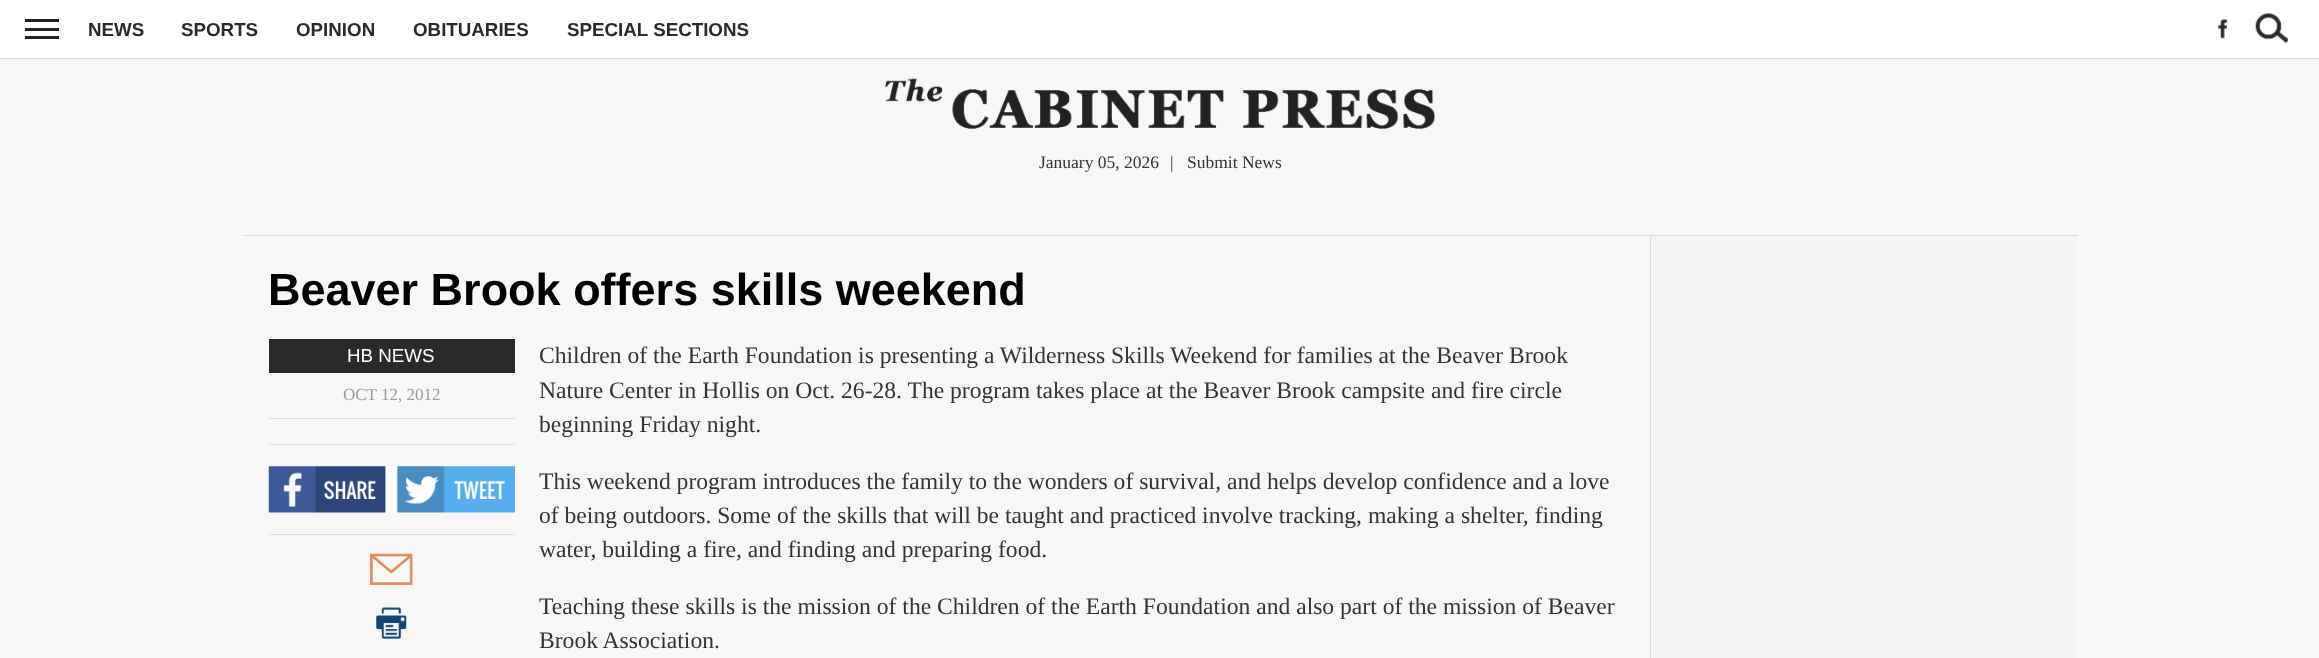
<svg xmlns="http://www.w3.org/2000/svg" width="2319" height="658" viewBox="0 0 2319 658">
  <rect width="100%" height="100%" fill="#f7f7f7"/>
  <path d="M0 0h2319v58H0z" fill="#fff"/>
  <path d="M0 58h2319v1H0z" fill="#d9d9d9"/>
  <path d="M25 19h34v3H25z" fill="#222"/>
  <path d="M25 28h34v3H25z" fill="#222"/>
  <path d="M25 36h34v3H25z" fill="#222"/>
  <image x="2217" y="19" width="10" height="20" href="img/1.png"/>
  <image x="2255" y="13" width="34" height="30" href="img/2.png"/>
  <image x="885" y="78" width="550" height="51" href="img/3.png"/>
  <path d="M1651 236h427v422H1651z" fill="#f4f4f4"/>
  <path d="M244 235h1834v1H244z" fill="#dbdbdb"/>
  <path d="M1650 236h1v422H1650z" fill="#dbdbdb"/>
  <path d="M269 339h246v34H269z" fill="#2a2a2a"/>
  <path d="M269 418h246v1H269z" fill="#dbdbdb"/>
  <path d="M269 444h246v1H269z" fill="#dbdbdb"/>
  <path d="M269 534h246v1H269z" fill="#dbdbdb"/>
  <image x="268" y="466" width="123" height="47" href="img/4.png"/>
  <image x="391" y="466" width="124" height="47" href="img/5.png"/>
  <image x="370" y="553" width="43" height="32" href="img/6.png"/>
  <image x="376" y="607" width="31" height="32" href="img/7.png"/>
  <g font-family="Liberation Sans" font-size="18.75" font-weight="bold" fill="#2a2a2a">
    <text x="88" y="36">NEWS</text>
    <text x="181" y="36">SPORTS</text>
    <text x="296" y="36">OPINION</text>
    <text x="413" y="36">OBITUARIES</text>
    <text x="567" y="36">SPECIAL SECTIONS</text>
  </g>
  <g font-family="Liberation Serif" font-size="17.5" fill="#333">
    <text x="1039" y="168">January 05, 2026</text>
    <text x="1170" y="168">|</text>
    <text x="1187" y="168">Submit News</text>
  </g>
  <text x="268" y="305" font-family="Liberation Sans" font-size="45" font-weight="bold" fill="#000">Beaver Brook offers skills weekend</text>
  <text x="347" y="362" font-family="Liberation Sans" font-size="18.75" fill="#fff">HB NEWS</text>
  <text x="343" y="400" font-family="Liberation Serif" font-size="17" fill="#999">OCT 12, 2012</text>
  <g font-family="Liberation Serif" font-size="23.6" fill="#333">
    <text x="539" y="363">Children of the Earth Foundation is presenting a Wilderness Skills Weekend for families at the Beaver Brook</text>
    <text x="539" y="398">Nature Center in Hollis on Oct. 26-28. The program takes place at the Beaver Brook campsite and fire circle</text>
    <text x="539" y="432">beginning Friday night.</text>
    <text x="539" y="489">This weekend program introduces the family to the wonders of survival, and helps develop confidence and a love</text>
    <text x="539" y="523">of being outdoors. Some of the skills that will be taught and practiced involve tracking, making a shelter, finding</text>
    <text x="539" y="557">water, building a fire, and finding and preparing food.</text>
    <text x="539" y="614">Teaching these skills is the mission of the Children of the Earth Foundation and also part of the mission of Beaver</text>
    <text x="539" y="648">Brook Association.</text>
  </g>
</svg>
